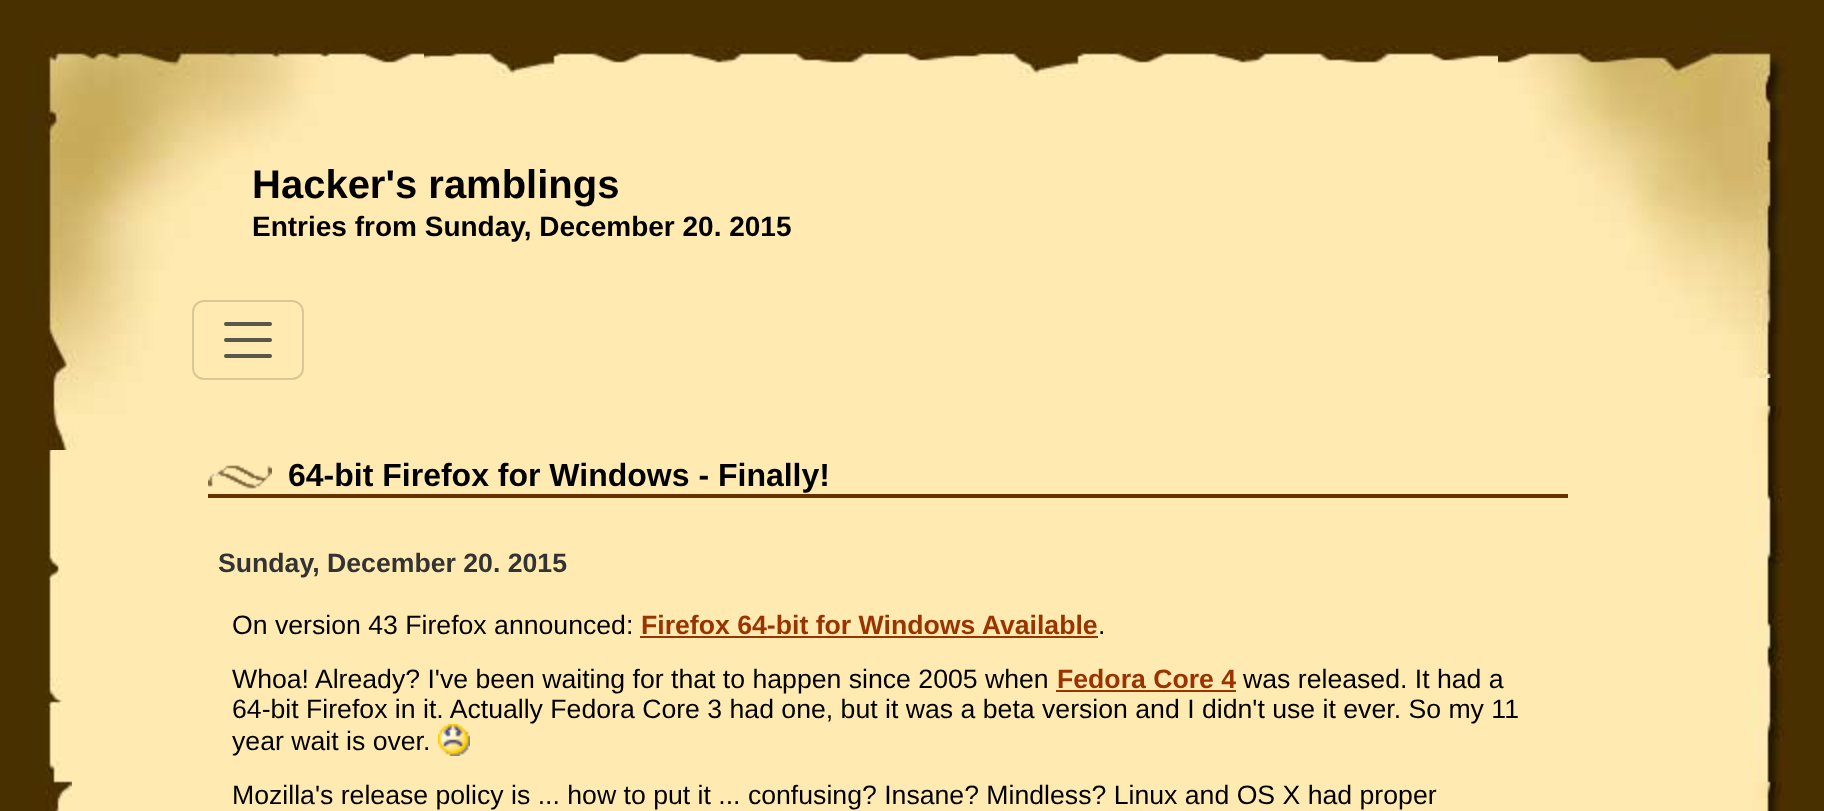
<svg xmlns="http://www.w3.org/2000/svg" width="1824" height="811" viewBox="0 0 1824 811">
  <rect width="100%" height="100%" fill="#493000"/>
  <path d="M72 80h1680v731H72z" fill="#ffeab1"/>
  <image x="30" y="450" width="42" height="361" href="img/1.png"/>
  <image x="1752" y="378" width="42" height="433" href="img/2.png"/>
  <image x="30" y="30" width="1468" height="50" href="img/3.png"/>
  <image x="30" y="42" width="394" height="408" href="img/4.png"/>
  <image x="1498" y="30" width="296" height="348" href="img/5.png"/>
  <rect x="193" y="301" width="110" height="78" rx="11" fill="none" stroke="#d9c796" stroke-width="2"/>
  <path d="M226 324H270M226 340H270M226 356H270" fill="none" stroke="#59564b" stroke-width="4" stroke-linecap="round"/>
  <image x="208" y="465" width="64" height="24" href="img/6.png"/>
  <path d="M208 494h1360v4H208z" fill="#630"/>
  <path d="M640 636h458v2H640z" fill="#930"/>
  <path d="M1056 690h180v2H1056z" fill="#930"/>
  <image x="438" y="724" width="32" height="32" href="img/7.png"/>
  <text x="252" y="198" font-family="Liberation Sans" font-size="40" font-weight="bold" fill="#000">Hacker's ramblings</text>
  <text x="252" y="236" font-family="Liberation Sans" font-size="28" font-weight="bold" fill="#000">Entries from Sunday, December 20. 2015</text>
  <text x="288" y="486" font-family="Liberation Sans" font-size="32" font-weight="bold" fill="#000">64-bit Firefox for Windows - Finally!</text>
  <text x="218" y="572" font-family="Liberation Sans" font-size="26.65" font-weight="bold" fill="#333">Sunday, December 20. 2015</text>
  <text x="232" y="634" font-family="Liberation Sans" font-size="26.65" fill="#000">On version 43 Firefox announced:</text>
  <text x="641" y="634" font-family="Liberation Sans" font-size="26.65" font-weight="bold" fill="#930">Firefox 64-bit for Windows Available</text>
  <g font-family="Liberation Sans" font-size="26.65" fill="#000">
    <text x="1098" y="634">.</text>
    <text x="232" y="688">Whoa! Already? I've been waiting for that to happen since 2005 when</text>
  </g>
  <text x="1057" y="688" font-family="Liberation Sans" font-size="26.65" font-weight="bold" fill="#930">Fedora Core 4</text>
  <g font-family="Liberation Sans" font-size="26.65" fill="#000">
    <text x="1243" y="688">was released. It had a</text>
    <text x="232" y="718">64-bit Firefox in it. Actually Fedora Core 3 had one, but it was a beta version and I didn't use it ever. So my 11</text>
    <text x="232" y="750">year wait is over.</text>
    <text x="232" y="804">Mozilla's release policy is ... how to put it ... confusing? Insane? Mindless? Linux and OS X had proper</text>
  </g>
</svg>
